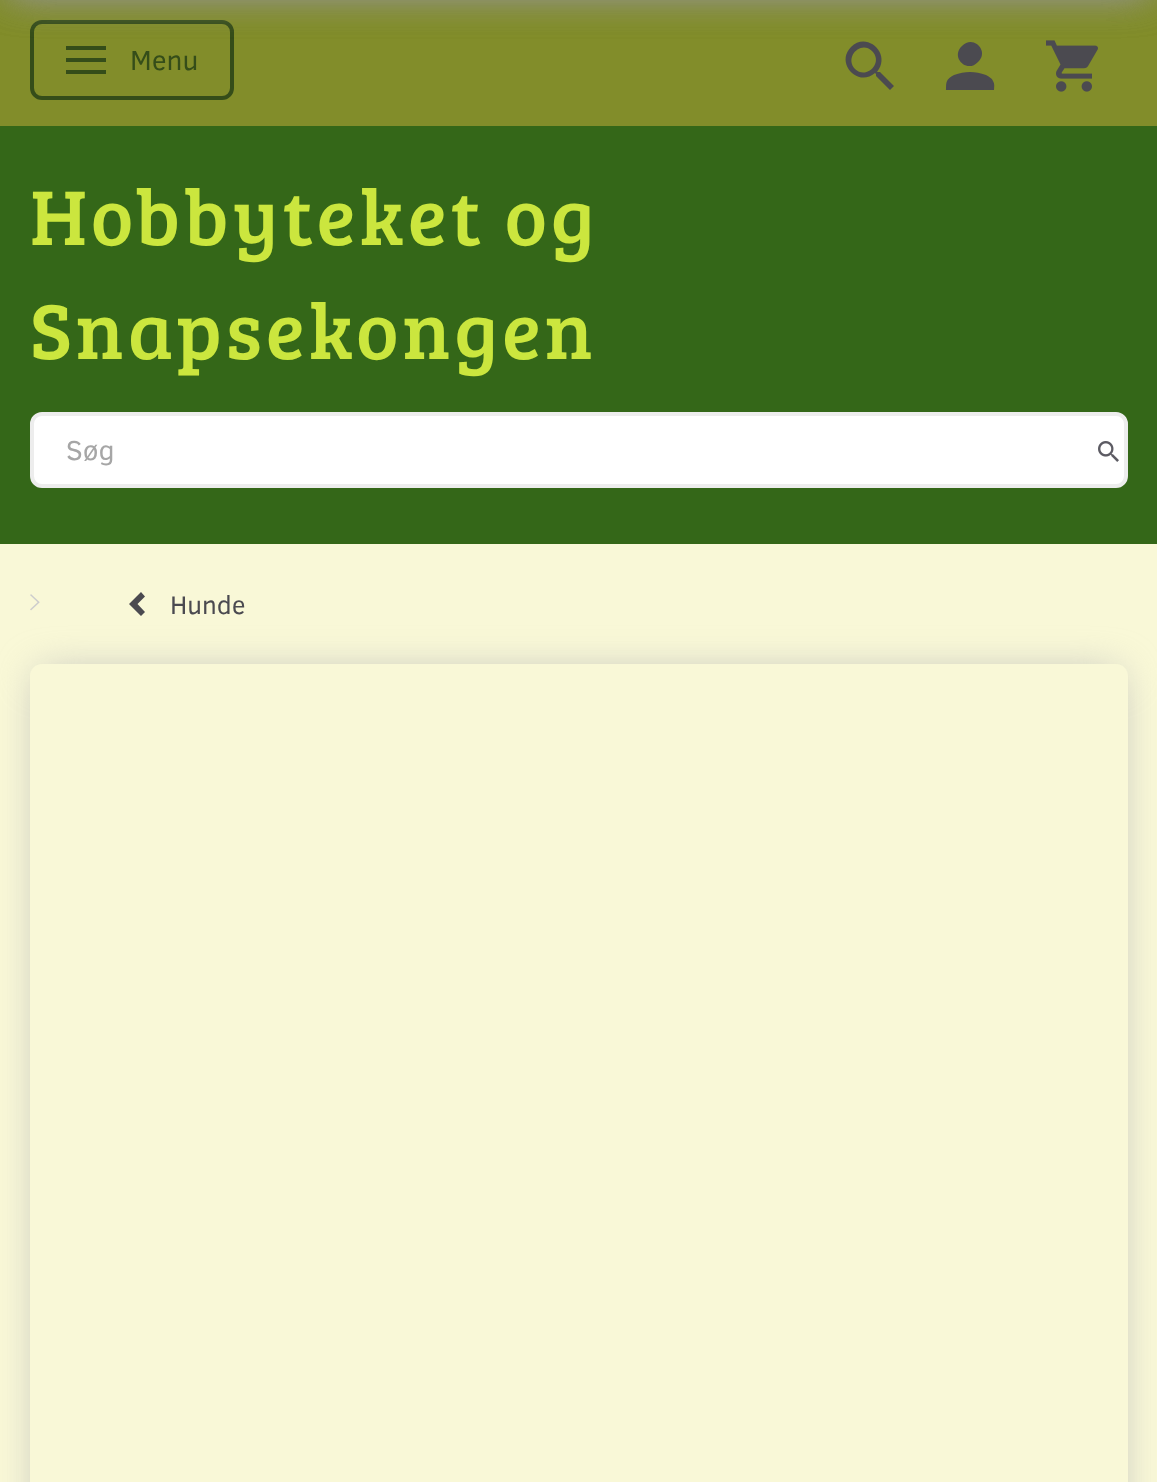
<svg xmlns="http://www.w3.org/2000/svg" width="1157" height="1482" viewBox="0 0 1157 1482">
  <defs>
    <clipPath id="clip1"><path d="M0 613H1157V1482H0ZM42 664H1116C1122.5 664 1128 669.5 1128 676V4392C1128 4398.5 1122.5 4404 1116 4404H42C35.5 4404 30 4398.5 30 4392V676C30 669.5 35.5 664 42 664Z" clip-rule="evenodd"/></clipPath>
  </defs>
  <rect width="100%" height="100%" fill="#346718"/>
  <path d="M0 0h1157v126H0z" fill="#828d2a"/>
  <rect x="32" y="22" width="200" height="76" rx="10" fill="none" stroke="#354d19" stroke-width="4"/>
  <path d="M66 46h40v4H66z" fill="#354d19"/>
  <path d="M880 72L894 86L890 90L876 76V74L875 73C858 88 835 63 851 47C867 31 892 54 877 72H878ZM855 69C866 80 884 63 872 51C861 40 844 57 855 69Z" fill="#4b4a50"/>
  <path d="M978 62C967 74 950 57 962 46C973 34 990 51 978 62ZM954 75C965 71 975 71 986 75C989 77 992 78 993 81C995 84 994 87 994 90H946C946 82 946 79 954 75Z" fill="#4b4a50"/>
  <image x="1046" y="40" width="52" height="52" href="img/1.png"/>
  <path d="M10 -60h1138v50H10z" fill="#949494" filter="blur(20px)"/>
  <path d="M10 -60h1138v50H10z" fill="#949494" filter="blur(20px)"/>
  <path d="M66 58h40v4H66z" fill="#354d19"/>
  <path d="M66 70h40v4H66z" fill="#354d19"/>
  <rect x="32" y="414" width="1094" height="72" rx="10" fill="#fff" stroke="#ededed" stroke-width="4"/>
  <image x="1098" y="441" width="21" height="21" href="img/2.png"/>
  <path d="M0 544h1157v938H0z" fill="#f9f8d7"/>
  <image x="30" y="594" width="10" height="17" href="img/3.png"/>
  <path d="M145 596.5L137.5 604L145 612L141 616L129 604L141 592Z" fill="#4b4a50"/>
  <g clip-path="url(#clip1)">
    <rect x="40" y="674" width="1078" height="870" rx="2" fill="#b8b8b8" filter="blur(20px)"/>
  </g>
  <text x="130" y="70" font-family="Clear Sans" font-size="28" fill="#354d19">Menu</text>
  <g font-family="Bree Serif" font-size="80" letter-spacing="4" fill="#cbe63e">
    <text x="30" y="245">Hobbyteket og</text>
    <text x="30" y="359">Snapsekongen</text>
  </g>
  <text x="66" y="460" font-family="Clear Sans" font-size="28" fill="#a6a6a6">Søg</text>
  <text x="170" y="614" font-family="Clear Sans" font-size="26" fill="#4b4a50">Hunde</text>
</svg>
